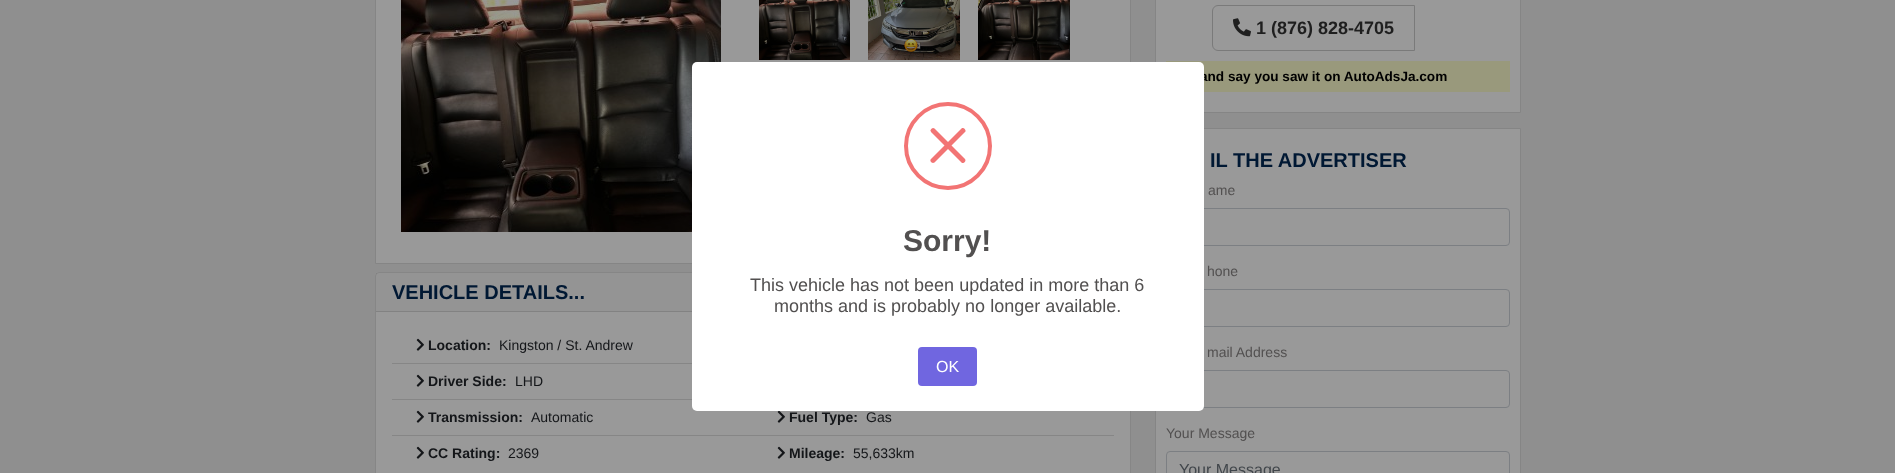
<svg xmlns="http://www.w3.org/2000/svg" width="1895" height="473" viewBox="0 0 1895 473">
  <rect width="100%" height="100%" fill="#8f8f8f"/>
  <path d="M375.5 -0.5h755v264H375.5z" fill="#999" stroke="#858585"/>
  <image x="401" y="0" width="320" height="232" href="img/1.png"/>
  <image x="759" y="0" width="91" height="60" href="img/2.png"/>
  <image x="868" y="0" width="92" height="60" href="img/3.png"/>
  <image x="978" y="0" width="92" height="60" href="img/4.png"/>
  <rect x="375" y="272" width="756" height="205" rx="4" fill="#999"/>
  <rect x="375.5" y="272.5" width="755" height="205" rx="3.5" fill="none" stroke="#0000001f"/>
  <path d="M376 273h316v38H376z" fill="#00000008"/>
  <path d="M376 311h316v1H376z" fill="#828282"/>
  <path d="M392 363h300v1H392z" fill="#868686"/>
  <image x="416" y="338" width="8" height="13" href="img/5.png"/>
  <path d="M392 399h300v1H392z" fill="#868686"/>
  <image x="416" y="374" width="8" height="13" href="img/5.png"/>
  <path d="M392 435h722v1H392z" fill="#868686"/>
  <image x="416" y="410" width="8" height="13" href="img/5.png"/>
  <image x="416" y="446" width="8" height="13" href="img/5.png"/>
  <image x="777" y="411" width="8" height="12" href="img/6.png"/>
  <image x="777" y="446" width="8" height="13" href="img/5.png"/>
  <path d="M1155.5 -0.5h365v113H1155.5z" fill="#999" stroke="#858585"/>
  <path d="M1218 5.5H1414.5V50.5H1218C1215 50.5 1212.5 48 1212.5 45V11C1212.5 8 1215 5.5 1218 5.5Z" fill="none" stroke="#7a7a7a"/>
  <image x="1233" y="18" width="18" height="19" href="img/7.png"/>
  <path d="M1166 61h344v31H1166z" fill="#99997c"/>
  <path d="M1155.5 128.5h365v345H1155.5z" fill="#999" stroke="#858585"/>
  <rect x="1166.5" y="208.5" width="343" height="37" rx="3.5" fill="none" stroke="#7c7f83"/>
  <rect x="1166.5" y="289.5" width="343" height="37" rx="3.5" fill="none" stroke="#7c7f83"/>
  <rect x="1166.5" y="370.5" width="343" height="37" rx="3.5" fill="none" stroke="#7c7f83"/>
  <rect x="1166.5" y="451.5" width="343" height="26" rx="3.5" fill="none" stroke="#7c7f83"/>
  <text x="392" y="299" font-family="Liberation Sans" font-size="20" font-weight="bold" fill="#001833">VEHICLE DETAILS...</text>
  <text x="428" y="350" font-family="Liberation Sans" font-size="14" font-weight="bold" fill="#141619">Location:</text>
  <text x="499" y="350" font-family="Liberation Sans" font-size="14" fill="#141619">Kingston / St. Andrew</text>
  <text x="428" y="386" font-family="Liberation Sans" font-size="14" font-weight="bold" fill="#141619">Driver Side:</text>
  <text x="515" y="386" font-family="Liberation Sans" font-size="14" fill="#141619">LHD</text>
  <text x="428" y="422" font-family="Liberation Sans" font-size="14" font-weight="bold" fill="#141619">Transmission:</text>
  <text x="531" y="422" font-family="Liberation Sans" font-size="14" fill="#141619">Automatic</text>
  <text x="428" y="458" font-family="Liberation Sans" font-size="14" font-weight="bold" fill="#141619">CC Rating:</text>
  <text x="508" y="458" font-family="Liberation Sans" font-size="14" fill="#141619">2369</text>
  <text x="789" y="422" font-family="Liberation Sans" font-size="14" font-weight="bold" fill="#141619">Fuel Type:</text>
  <text x="866" y="422" font-family="Liberation Sans" font-size="14" fill="#141619">Gas</text>
  <text x="789" y="458" font-family="Liberation Sans" font-size="14" font-weight="bold" fill="#141619">Mileage:</text>
  <text x="853" y="458" font-family="Liberation Sans" font-size="14" fill="#141619">55,633km</text>
  <text x="1256" y="34" font-family="Liberation Sans" font-size="18" font-weight="bold" fill="#1f1f1f">1 (876) 828-4705</text>
  <text x="1200" y="81" font-family="Liberation Sans" font-size="13.6" font-weight="bold" fill="#000">and say you saw it on AutoAdsJa.com</text>
  <text x="1210" y="167" font-family="Liberation Sans" font-size="20" font-weight="bold" fill="#001833">IL THE ADVERTISER</text>
  <g font-family="Liberation Sans" font-size="14" fill="#525050">
    <text x="1208" y="195">ame</text>
    <text x="1207" y="276">hone</text>
    <text x="1207" y="357">mail Address</text>
    <text x="1166" y="438">Your Message</text>
  </g>
  <text x="1179" y="475" font-family="Liberation Sans" font-size="16" fill="#41464b">Your Message</text>
  <rect x="692" y="62" width="512" height="349" rx="5" fill="#fff"/>
  <circle cx="948" cy="146" r="42" fill="none" stroke="#f27474" stroke-width="4"/>
  <path d="M934.5 128.5L965 159C966.5 161 964 163.5 962 163L931 132L930.5 130.5C931 128.5 933 127 934.5 128.5Z" fill="#f27474"/>
  <path d="M931 159L961.5 128.5C963.5 127 966 129.5 965.5 131.5L934.5 162.5L933 163C931 162.5 929.5 160.5 931 159Z" fill="#f27474"/>
  <text x="903" y="251" font-family="Liberation Sans" font-size="30" font-weight="bold" fill="#525050">Sorry!</text>
  <g font-family="Liberation Sans" font-size="18" fill="#525050">
    <text x="750" y="291">This vehicle has not been updated in more than 6</text>
    <text x="774" y="312">months and is probably no longer available.</text>
  </g>
  <rect x="918" y="347" width="59" height="39" rx="4" fill="#7066e0"/>
  <text x="936" y="372" font-family="Liberation Sans" font-size="16" fill="#fff">OK</text>
</svg>
